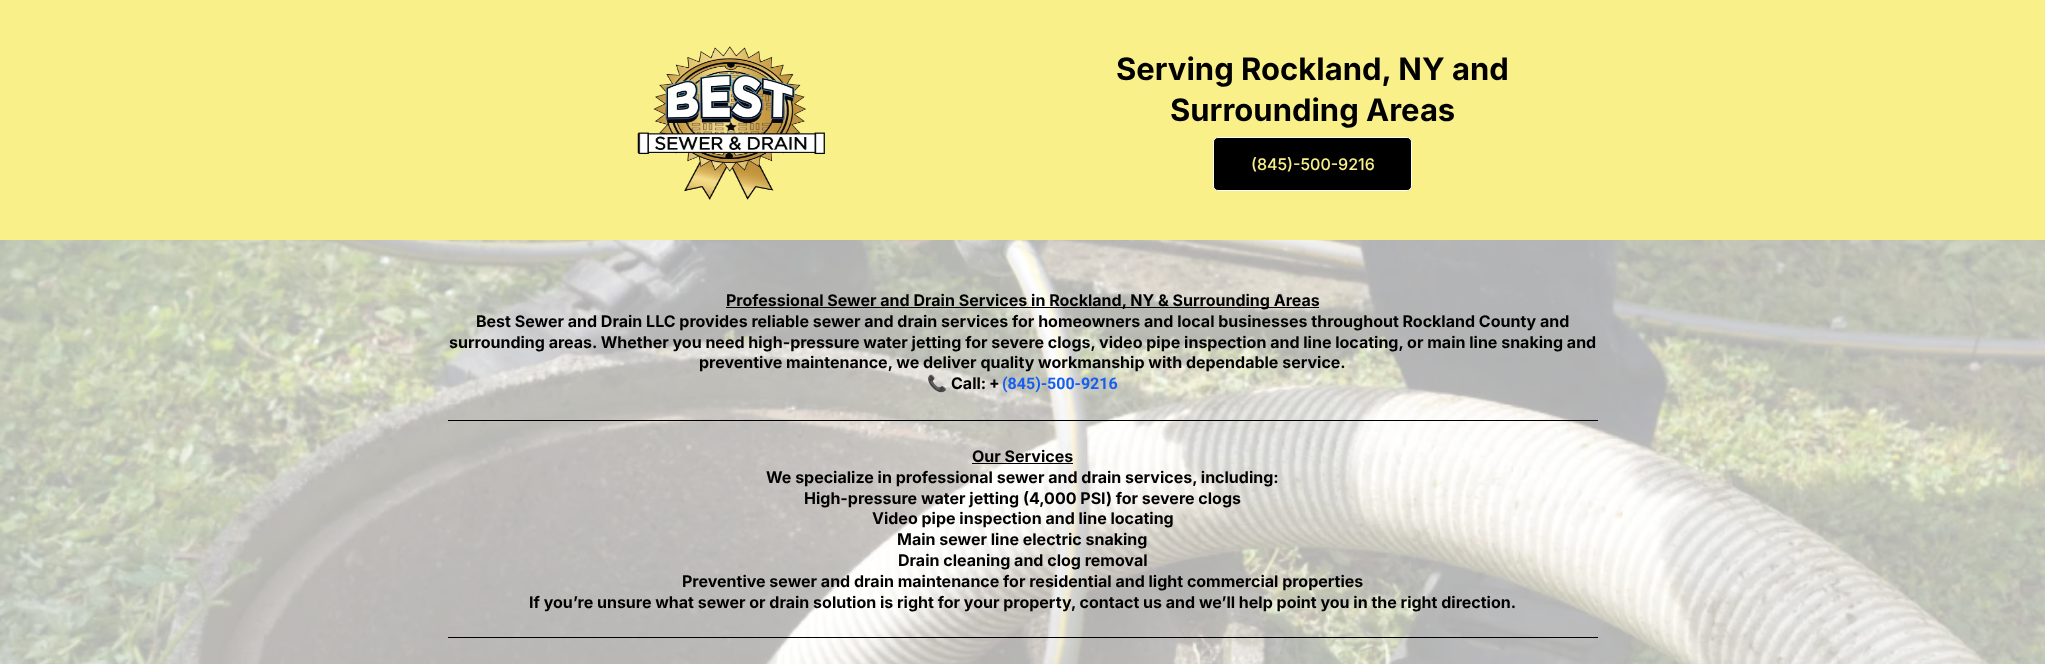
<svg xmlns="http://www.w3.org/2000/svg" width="2045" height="664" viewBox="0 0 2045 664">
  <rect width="100%" height="100%" fill="#fff"/>
  <path d="M0 0h2045v240H0z" fill="#faf089"/>
  <image x="637" y="46" width="188" height="154" href="img/1.png"/>
  <rect x="1213.5" y="137.5" width="198" height="53" rx="4.5" fill="#000" stroke="#fff"/>
  <image x="0" y="240" width="2045" height="424" href="img/2.png"/>
  <path d="M726 307h593v1H726z" fill="#000"/>
  <path d="M448 420h1150v1H448z" fill="#000"/>
  <path d="M972 463h101v1H972z" fill="#000"/>
  <path d="M448 637h1150v1H448z" fill="#000"/>
  <g font-family="Inter" font-size="31" font-weight="bold" fill="#000">
    <text x="1116" y="80">Serving Rockland, NY and</text>
    <text x="1170" y="121">Surrounding Areas</text>
  </g>
  <text x="1251" y="170" font-family="Inter" font-size="16" font-weight="500" fill="#faf089">(845)-500-9216</text>
  <g font-family="Inter" font-size="16" font-weight="bold" fill="#000">
    <text x="726" y="306">Professional Sewer and Drain Services in Rockland, NY &amp; Surrounding Areas</text>
    <text x="476" y="327">Best Sewer and Drain LLC provides reliable sewer and drain services for homeowners and local businesses throughout Rockland County and</text>
    <text x="449" y="348">surrounding areas. Whether you need high-pressure water jetting for severe clogs, video pipe inspection and line locating, or main line snaking and</text>
    <text x="699" y="368">preventive maintenance, we deliver quality workmanship with dependable service.</text>
  </g>
  <text x="927" y="389" font-family="Noto Color Emoji" font-size="16" font-weight="bold" fill="#000">📞</text>
  <text x="951" y="389" font-family="Inter" font-size="16" font-weight="bold" fill="#000">Call:</text>
  <text x="990" y="389" font-family="Roboto" font-size="16" font-weight="bold" fill="#000">+</text>
  <text x="1002" y="389" font-family="Roboto" font-size="16" font-weight="bold" fill="#155eef">(845)-500-9216</text>
  <g font-family="Inter" font-size="16" font-weight="bold" fill="#000">
    <text x="972" y="462">Our Services</text>
    <text x="766" y="483">We specialize in professional sewer and drain services, including:</text>
    <text x="804" y="504">High-pressure water jetting (4,000 PSI) for severe clogs</text>
    <text x="872" y="524">Video pipe inspection and line locating</text>
    <text x="897" y="545">Main sewer line electric snaking</text>
    <text x="898" y="566">Drain cleaning and clog removal</text>
    <text x="682" y="587">Preventive sewer and drain maintenance for residential and light commercial properties</text>
    <text x="529" y="608">If you’re unsure what sewer or drain solution is right for your property, contact us and we’ll help point you in the right direction.</text>
  </g>
</svg>
